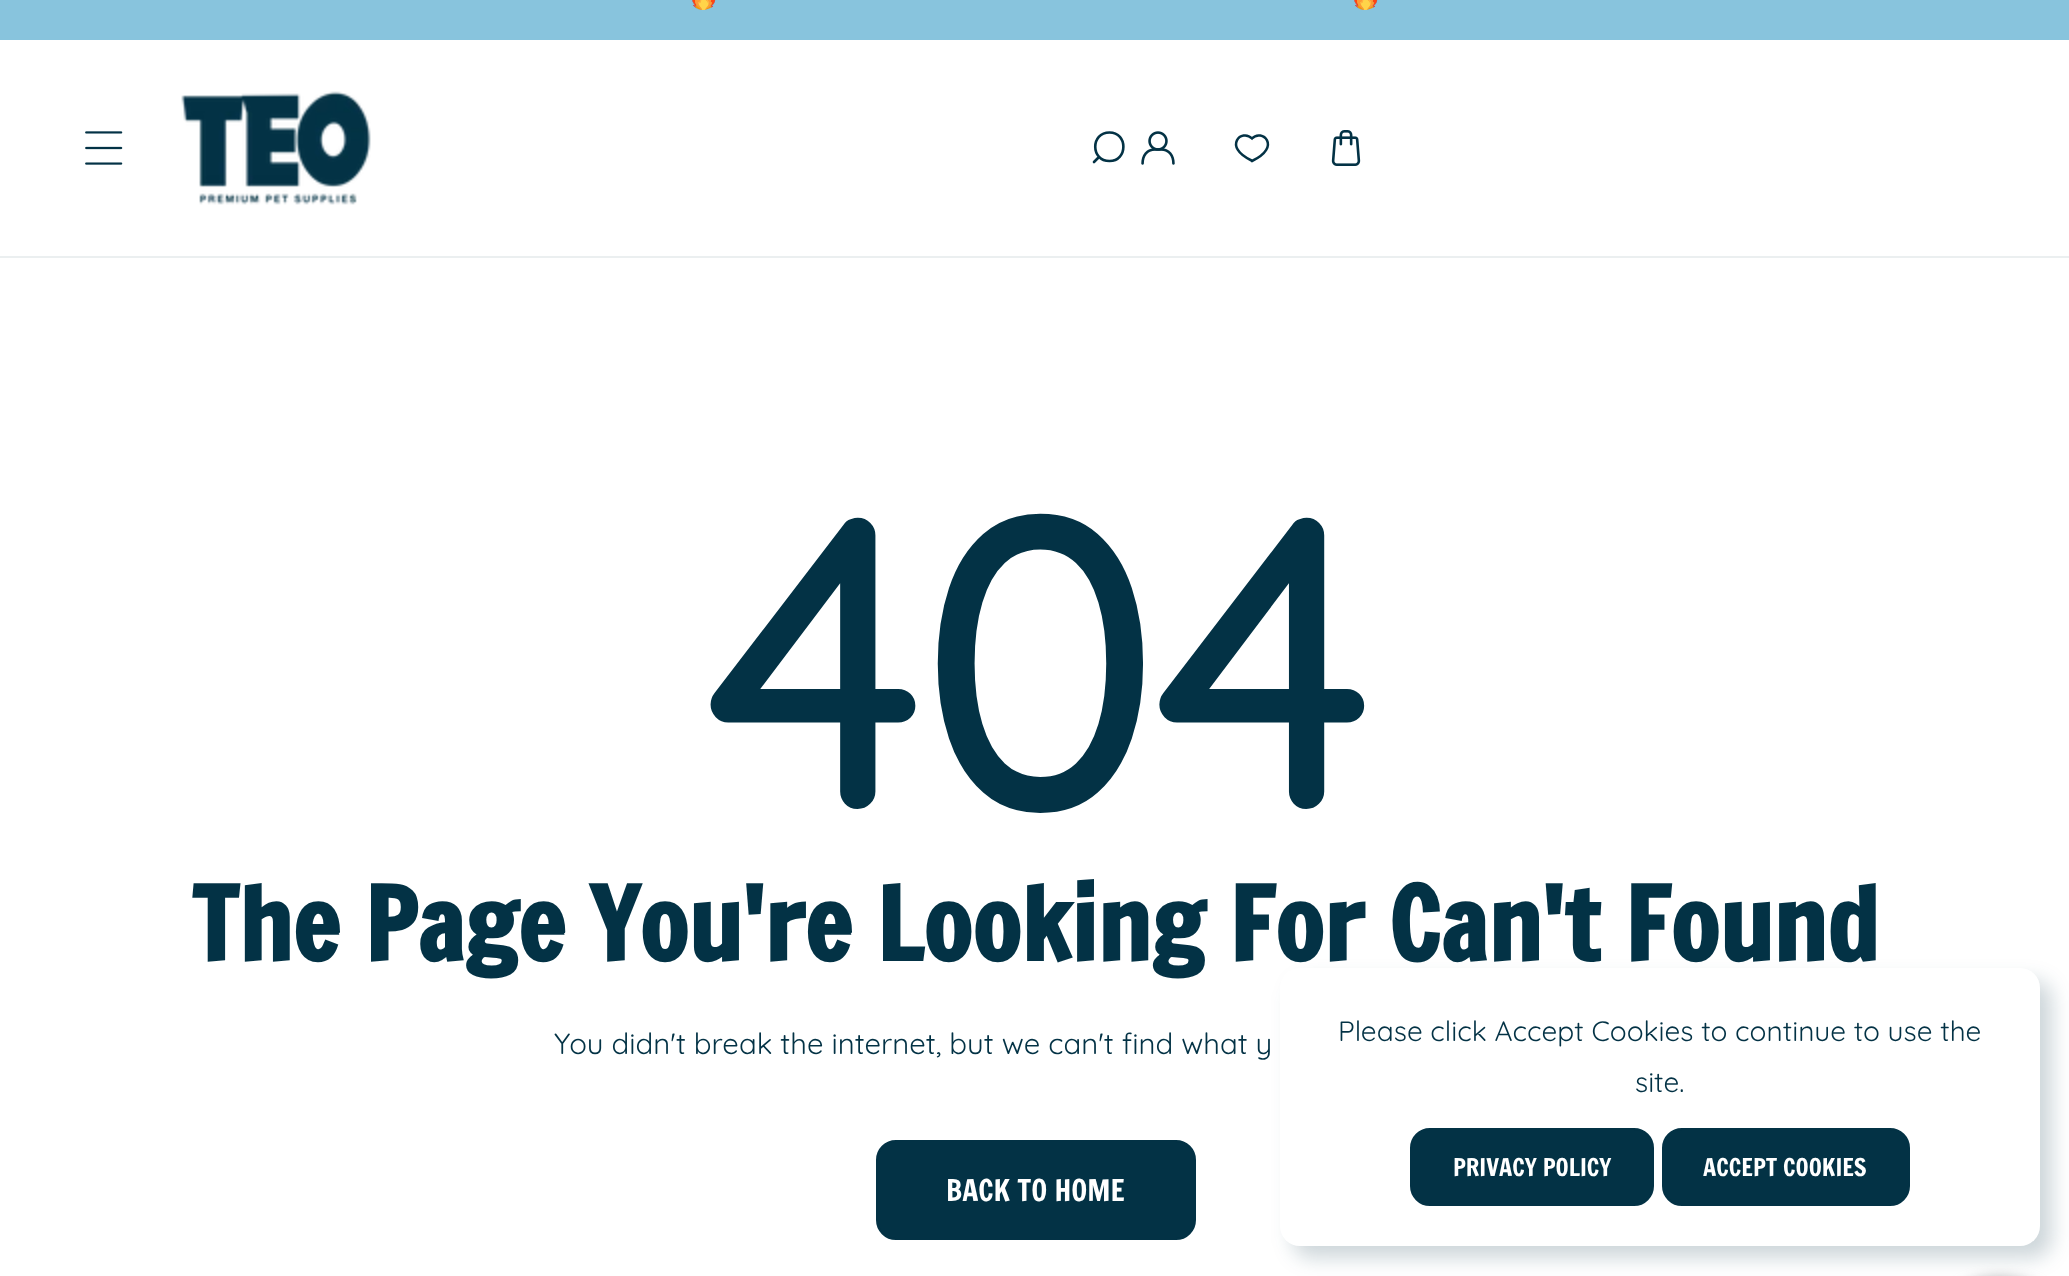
<svg xmlns="http://www.w3.org/2000/svg" width="2069" height="1276" viewBox="0 0 2069 1276">
  <rect width="100%" height="100%" fill="#fff"/>
  <path d="M0 0h2069v40H0z" fill="#88c4dd"/>
  <image x="692" y="0" width="24" height="10" href="img/1.png"/>
  <image x="1354" y="0" width="24" height="10" href="img/1.png"/>
  <path d="M0 256h2069v2H0z" fill="#ebeff0"/>
  <image x="85" y="131" width="38" height="34" href="img/2.png"/>
  <image x="181" y="91" width="190" height="114" href="img/3.png"/>
  <path d="M1109.5 161C1128 161 1128 132.5 1109.5 132.5C1090.5 132.5 1090.5 161 1109.5 161ZM1094 162L1099 157" fill="none" stroke="#033245" stroke-width="2.6" stroke-linecap="round" stroke-linejoin="round"/>
  <image x="1141" y="131" width="34" height="34" href="img/4.png"/>
  <path d="M1251.5 160.5L1252 161C1282.5 146.5 1261.5 128 1252 138.5C1242 128 1222 146.5 1251.5 160.5Z" fill="none" stroke="#033245" stroke-width="2.5"/>
  <image x="1331" y="130" width="30" height="36" href="img/5.png"/>
  <rect x="877" y="1141" width="318" height="98" rx="19" fill="#033245" stroke="#033245" stroke-width="2"/>
  <rect x="1292" y="980" width="760" height="278" rx="20" fill="#03324533" filter="blur(10px)"/>
  <rect x="1946" y="1276" width="108" height="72" rx="54" fill="#99999994" filter="blur(6px)"/>
  <text x="705" y="809" font-family="Quicksand" font-size="400" font-weight="bold" fill="#033245">404</text>
  <text x="191" y="961" font-family="Francois One" font-size="100" font-weight="bold" fill="#033245">The Page You're Looking For Can't Found</text>
  <text x="554" y="1054" font-family="Quicksand" font-size="29.3" fill="#033245">You didn't break the internet, but we can't find what y</text>
  <text x="946" y="1201" font-family="Francois One" font-size="29.3" fill="#fff">BACK TO HOME</text>
  <rect x="1280" y="968" width="760" height="278" rx="20" fill="#fff"/>
  <g font-family="Quicksand" font-size="28" fill="#033245">
    <text x="1338" y="1041">Please click Accept Cookies to continue to use the</text>
    <text x="1635" y="1092">site.</text>
  </g>
  <rect x="1411" y="1129" width="242" height="76" rx="19" fill="#033245" stroke="#033245" stroke-width="2"/>
  <text x="1453" y="1176" font-family="Francois One" font-size="24" fill="#fff">PRIVACY POLICY</text>
  <rect x="1663" y="1129" width="246" height="76" rx="19" fill="#033245" stroke="#033245" stroke-width="2"/>
  <text x="1703" y="1176" font-family="Francois One" font-size="24" fill="#fff">ACCEPT COOKIES</text>
</svg>
